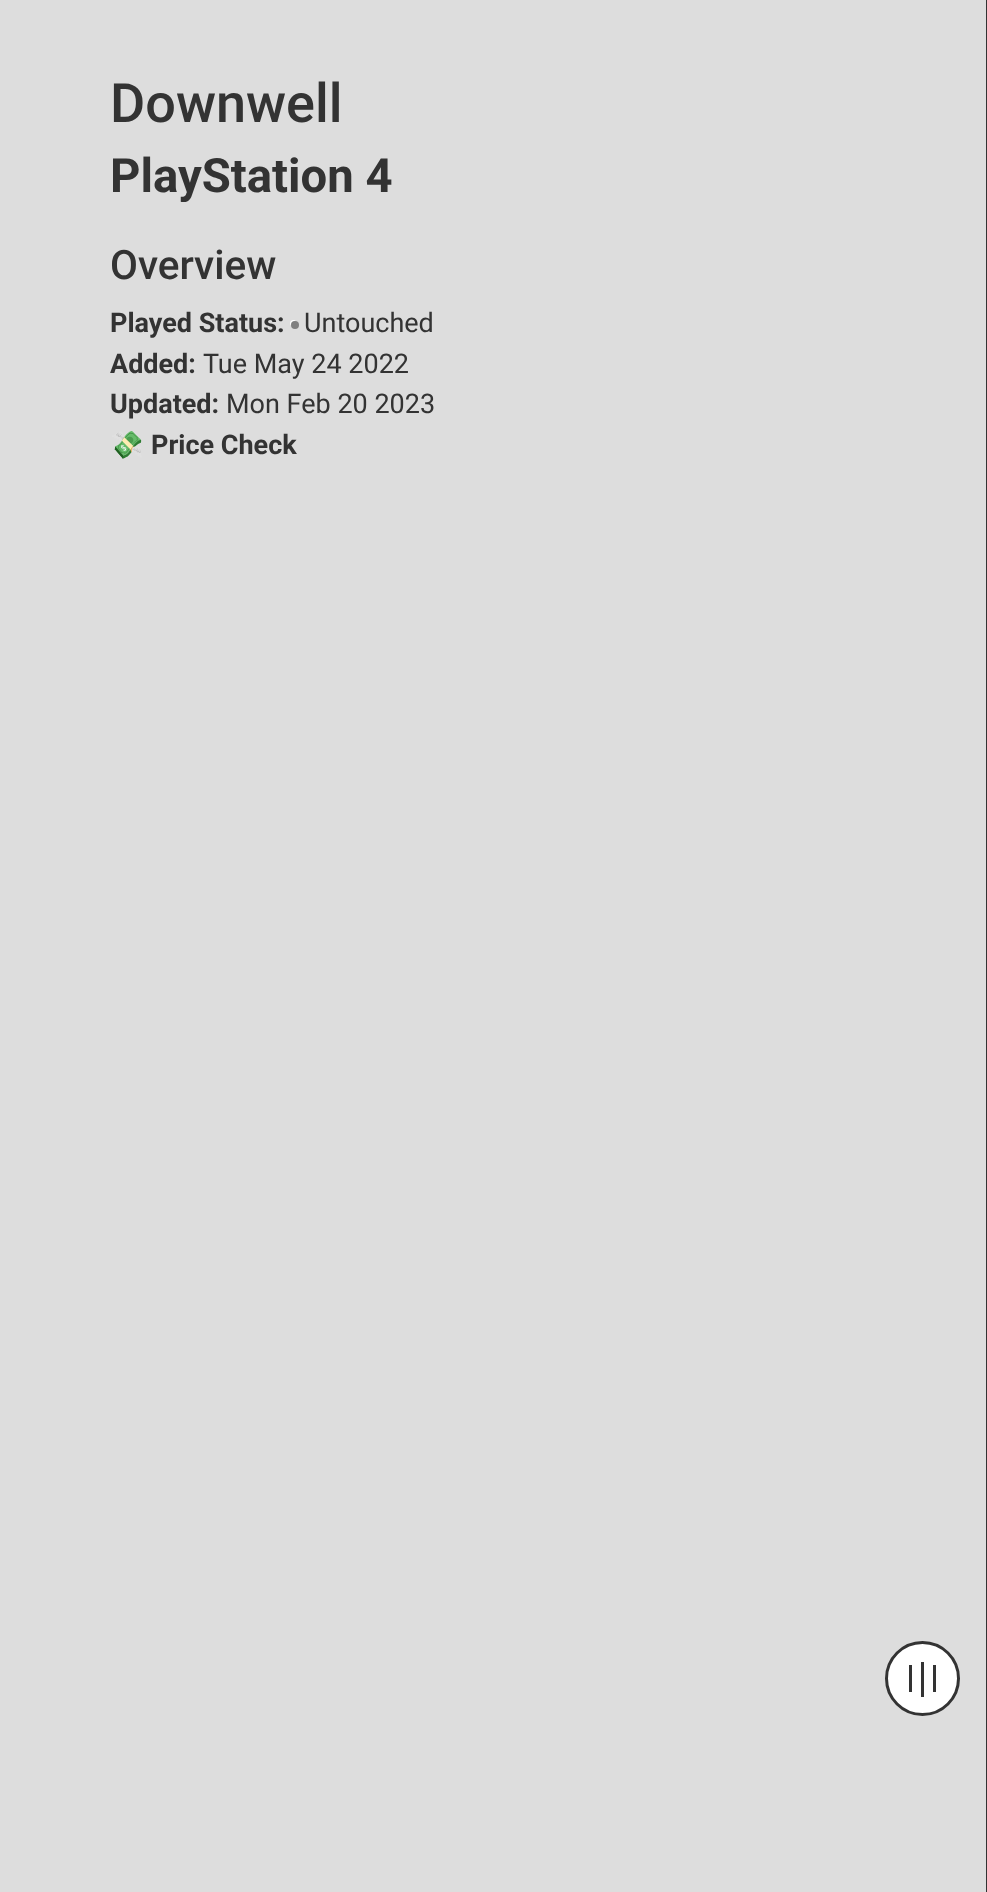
<svg xmlns="http://www.w3.org/2000/svg" width="987" height="1892" viewBox="0 0 987 1892">
  <rect width="100%" height="100%" fill="#ddd"/>
  <path d="M986 0h1v1892H986z" fill="#333"/>
  <path d="M293.5 320C290 320 289 324 291.5 326C290 323 293 320 296 321.5C295.5 320.5 294.5 320 293.5 320Z" fill="#fff"/>
  <circle cx="295" cy="325" r="4" fill="#808080"/>
  <circle cx="922.5" cy="1678.5" r="36" fill="#fff" stroke="#333" stroke-width="3"/>
  <path d="M921 1662h3v35H921z" fill="#333"/>
  <path d="M933 1665h3v27H933z" fill="#333"/>
  <path d="M909 1665h3v27H909z" fill="#333"/>
  <text x="110" y="122" font-family="Roboto" font-size="54" font-weight="500" fill="#333">Downwell</text>
  <text x="110" y="192" font-family="Roboto" font-size="47.25" font-weight="bold" fill="#333">PlayStation 4</text>
  <text x="110" y="279" font-family="Roboto" font-size="40.5" font-weight="500" fill="#333">Overview</text>
  <text x="110" y="332" font-family="Roboto" font-size="27" font-weight="bold" fill="#333">Played Status:</text>
  <text x="304" y="332" font-family="Roboto" font-size="27" fill="#333">Untouched</text>
  <text x="110" y="373" font-family="Roboto" font-size="27" font-weight="bold" fill="#333">Added:</text>
  <text x="203" y="373" font-family="Roboto" font-size="27" fill="#333">Tue May 24 2022</text>
  <text x="110" y="413" font-family="Roboto" font-size="27" font-weight="bold" fill="#333">Updated:</text>
  <text x="226" y="413" font-family="Roboto" font-size="27" fill="#333">Mon Feb 20 2023</text>
  <text x="110" y="454" font-family="Noto Color Emoji" font-size="27" font-weight="bold" fill="#333">💸</text>
  <text x="151" y="454" font-family="Roboto" font-size="27" font-weight="bold" fill="#333">Price Check</text>
</svg>
